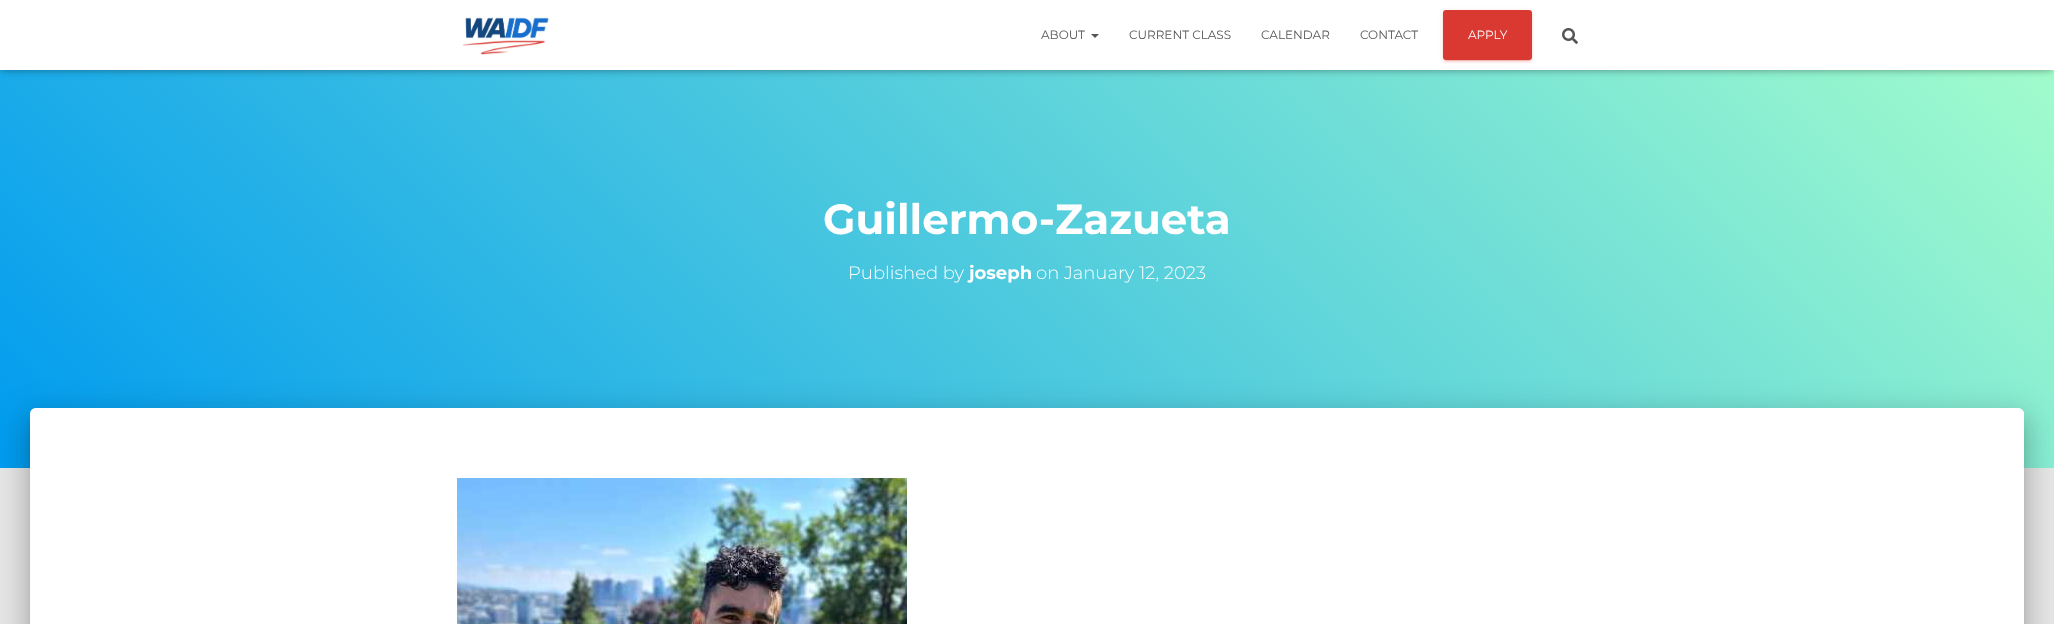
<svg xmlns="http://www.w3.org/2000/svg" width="2054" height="624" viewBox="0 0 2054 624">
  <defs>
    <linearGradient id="g1" gradientUnits="userSpaceOnUse" x1="397" y1="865" x2="1658" y2="-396"><stop offset="0" stop-color="#009bef"/><stop offset="1" stop-color="#a6ffcb"/></linearGradient>
  </defs>
  <rect width="100%" height="100%" fill="#e5e5e5"/>
  <path d="M0 70h2054v398H0z" fill="url(#g1)"/>
  <path d="M2 6h2050v66H2z" fill="#0000001a" filter="blur(2.5px)"/>
  <path d="M0 1h2054v70H0z" fill="#0000001f" filter="blur(5px)"/>
  <path d="M6 7h2042v58H6z" fill="#0000006b" filter="blur(5px)"/>
  <path d="M0 0h2054v70H0z" fill="#fff"/>
  <image x="462" y="17" width="87" height="38" href="img/1.png"/>
  <path d="M1091 34H1099L1095 38Z" fill="#555"/>
  <rect x="1443" y="11" width="89" height="50" rx="3" fill="#d939301f" filter="blur(2.5px)"/>
  <rect x="1445" y="15" width="85" height="46" rx="1" fill="#d9393033" filter="blur(0.5px)"/>
  <rect x="1443" y="12" width="89" height="50" rx="3" fill="#d9393024" filter="blur(1px)"/>
  <rect x="1443" y="10" width="89" height="50" rx="3" fill="#d93930"/>
  <image x="1562" y="28" width="16" height="16" href="img/2.png"/>
  <rect x="35" y="421" width="1984" height="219" rx="1" fill="#00000033" filter="blur(5px)"/>
  <rect x="25" y="409" width="2004" height="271" rx="11" fill="#0000001f" filter="blur(15px)"/>
  <rect x="28" y="422" width="1998" height="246" rx="8" fill="#00000024" filter="blur(12px)"/>
  <path d="M36 408H2018C2021.5 408 2024 410.5 2024 414V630H30V414C30 410.5 32.5 408 36 408Z" fill="#fff"/>
  <image x="457" y="478" width="450" height="146" href="img/3.png"/>
  <g font-family="Montserrat" font-size="12" fill="#555">
    <text x="1041" y="39">ABOUT</text>
    <text x="1129" y="39">CURRENT CLASS</text>
    <text x="1261" y="39">CALENDAR</text>
    <text x="1360" y="39">CONTACT</text>
  </g>
  <text x="1468" y="39" font-family="Montserrat" font-size="12" fill="#fff">APPLY</text>
  <text x="823" y="234" font-family="Montserrat" font-size="42" font-weight="bold" fill="#fff">Guillermo-Zazueta</text>
  <text x="848" y="279" font-family="Montserrat" font-size="18" font-weight="300" fill="#fff">Published by</text>
  <text x="969" y="279" font-family="Montserrat" font-size="18" font-weight="bold" fill="#fff">joseph</text>
  <text x="1036" y="279" font-family="Montserrat" font-size="18" font-weight="300" fill="#fff">on January 12, 2023</text>
</svg>
